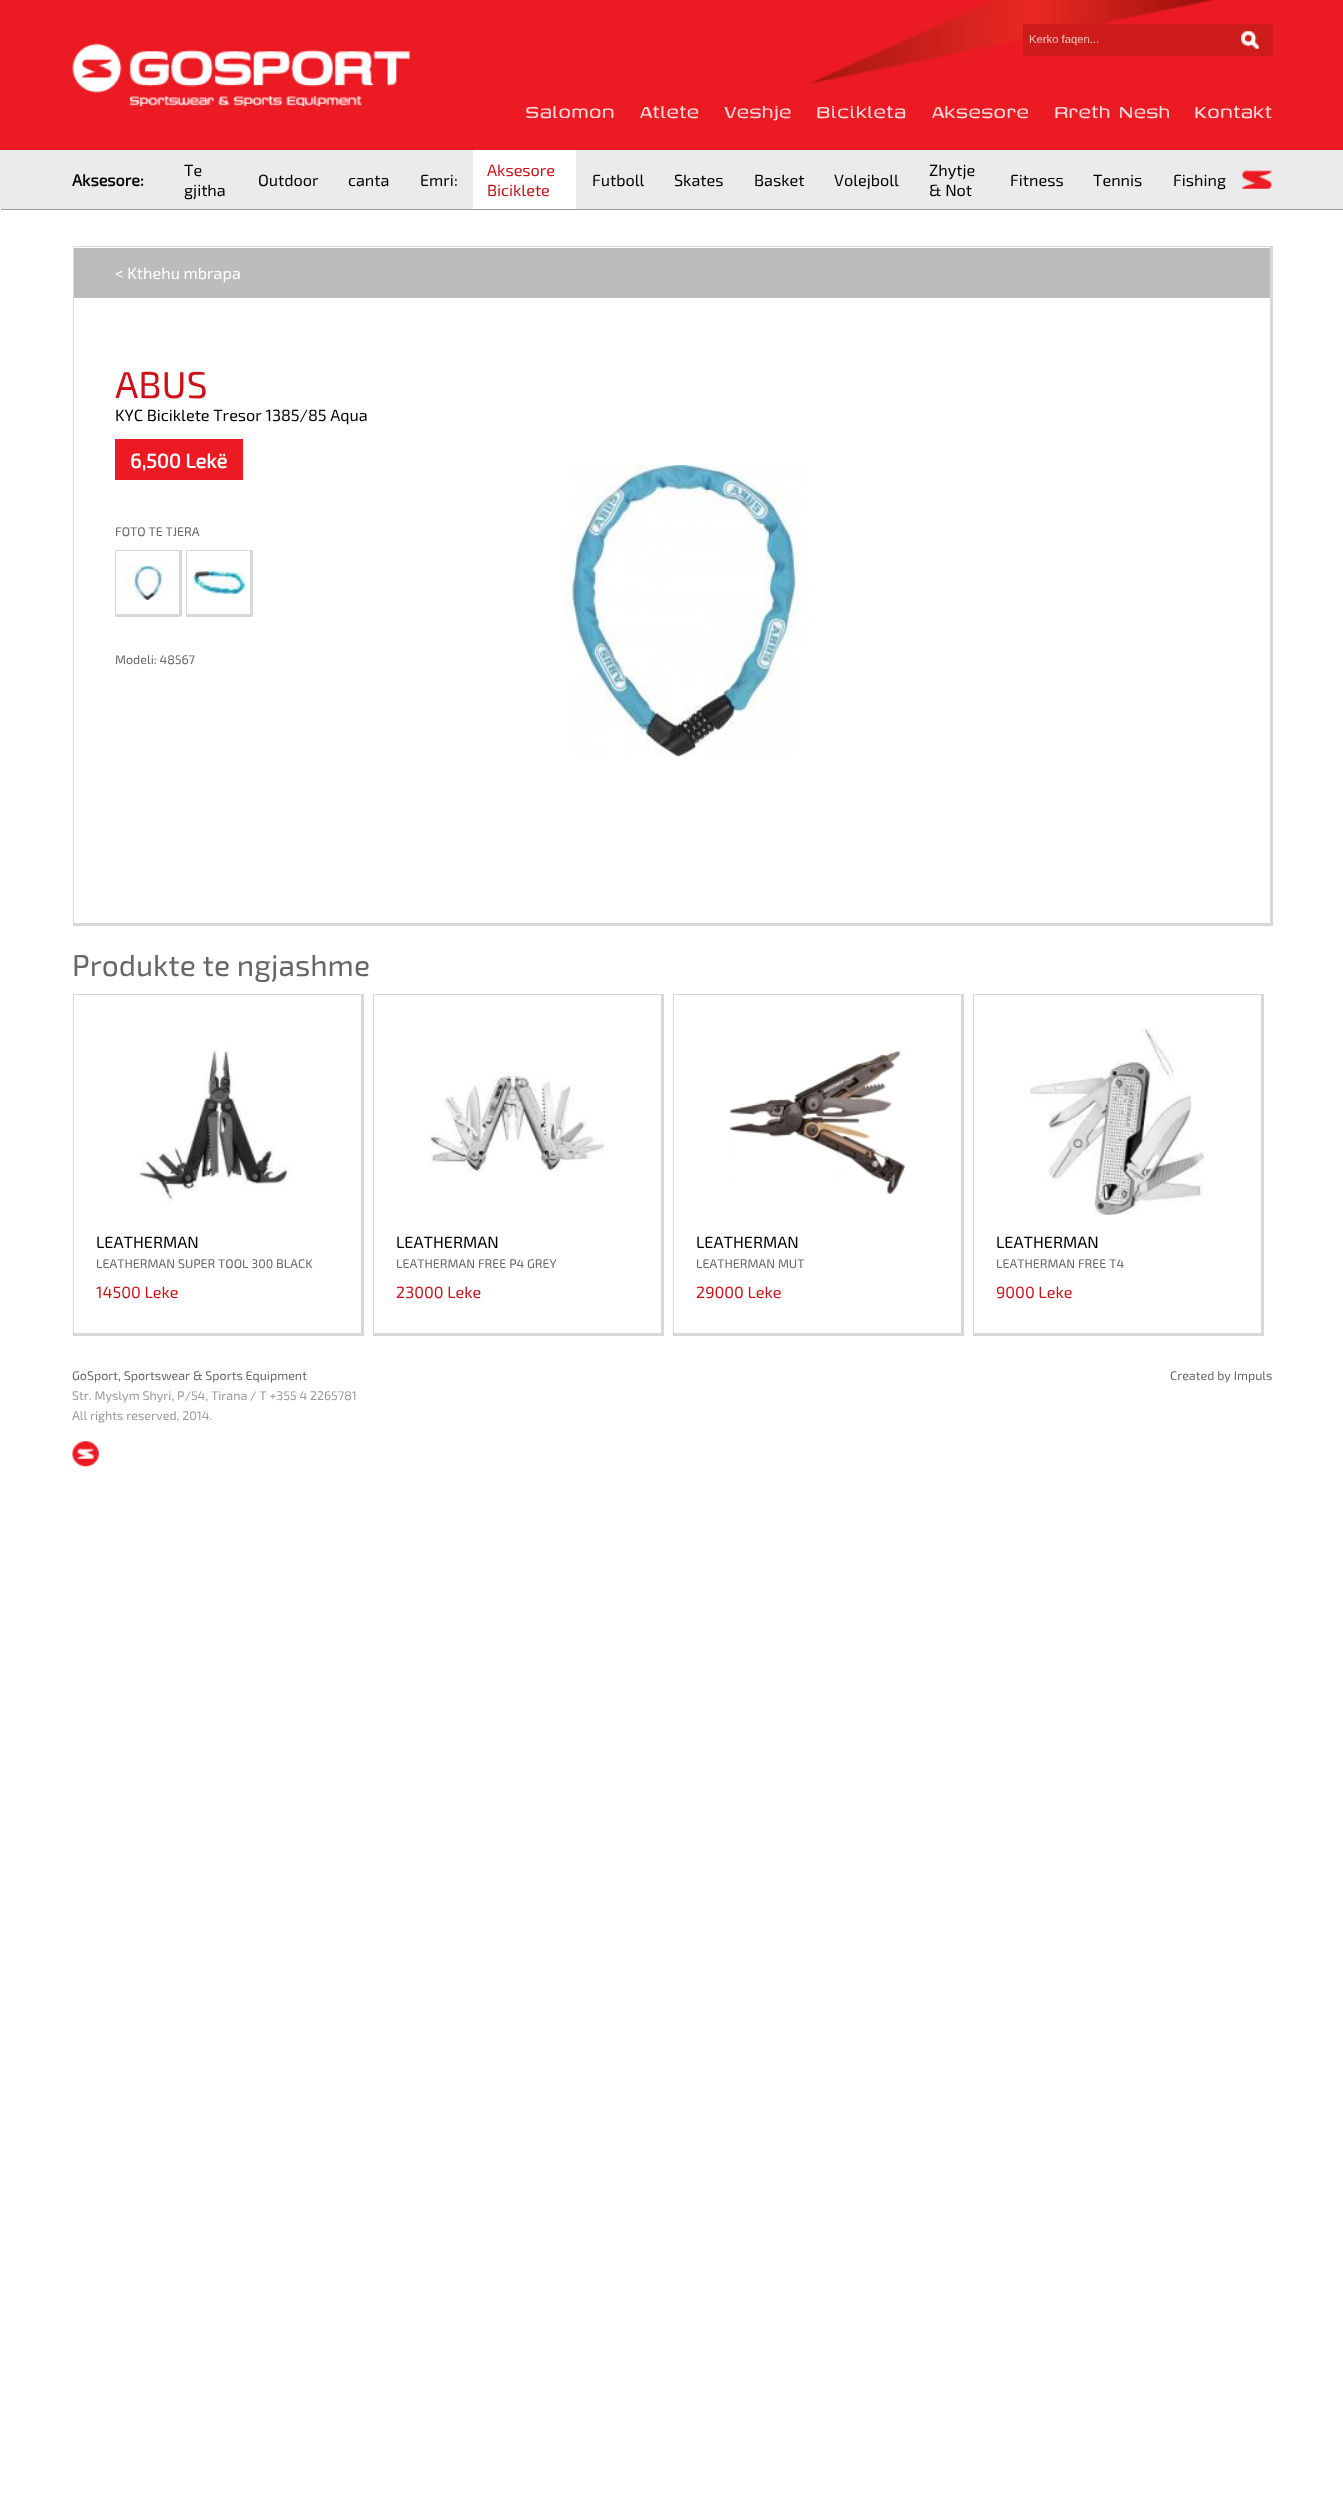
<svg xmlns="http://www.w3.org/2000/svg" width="1343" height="2511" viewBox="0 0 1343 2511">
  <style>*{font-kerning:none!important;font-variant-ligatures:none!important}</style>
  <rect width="100%" height="100%" fill="#fff"/>
  <path d="M0 0h1343v150H0z" fill="#ec1b23"/>
  <image x="810" y="0" width="404" height="86" href="img/1.png"/>
  <image x="72" y="43" width="338" height="64" href="img/2.png"/>
  <path d="M1023 24h250v32H1023z" fill="#cd1c1a"/>
  <image x="1241" y="31" width="18" height="18" href="img/3.png"/>
  <path d="M1 151h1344v59H1z" fill="#999" filter="blur(0.5px)"/>
  <path d="M0 150h1343v59H0z" fill="#ebebeb"/>
  <path d="M473 150h103v59H473z" fill="#fff"/>
  <image x="1241" y="170" width="31" height="19" href="img/4.png"/>
  <path d="M73 246h1200v1H73z" fill="#d8d8d8"/>
  <path d="M1270 246h3v679H1270z" fill="#d8d8d8"/>
  <path d="M73 923h1200v3H73z" fill="#d8d8d8"/>
  <path d="M73 246h1v679H73z" fill="#d8d8d8"/>
  <path d="M74 248h1196v50H74z" fill="#bcbcbc"/>
  <path d="M115 439h128v41H115z" fill="#ec1b23"/>
  <path d="M115 550h66v1H115z" fill="#d8d8d8"/>
  <path d="M179 550h3v66H179z" fill="#d8d8d8"/>
  <path d="M115 614h66v3H115z" fill="#d8d8d8"/>
  <path d="M115 550h1v66H115z" fill="#d8d8d8"/>
  <image x="122" y="566" width="42" height="34" href="img/5.png"/>
  <path d="M186 550h67v1H186z" fill="#d8d8d8"/>
  <path d="M250 550h3v66H250z" fill="#d8d8d8"/>
  <path d="M186 614h67v3H186z" fill="#d8d8d8"/>
  <path d="M186 550h1v66H186z" fill="#d8d8d8"/>
  <image x="193" y="571" width="52" height="23" href="img/6.png"/>
  <image x="565" y="465" width="240" height="292" href="img/7.png"/>
  <path d="M73 994h291v1H73z" fill="#d8d8d8"/>
  <path d="M361 994h3v341H361z" fill="#d8d8d8"/>
  <path d="M73 1333h291v3H73z" fill="#d8d8d8"/>
  <path d="M73 994h1v341H73z" fill="#d8d8d8"/>
  <image x="136" y="1047" width="155" height="157" href="img/8.png"/>
  <path d="M373 994h291v1H373z" fill="#d8d8d8"/>
  <path d="M661 994h3v341H661z" fill="#d8d8d8"/>
  <path d="M373 1333h291v3H373z" fill="#d8d8d8"/>
  <path d="M373 994h1v341H373z" fill="#d8d8d8"/>
  <image x="430" y="1072" width="175" height="100" href="img/9.png"/>
  <path d="M673 994h291v1H673z" fill="#d8d8d8"/>
  <path d="M961 994h3v341H961z" fill="#d8d8d8"/>
  <path d="M673 1333h291v3H673z" fill="#d8d8d8"/>
  <path d="M673 994h1v341H673z" fill="#d8d8d8"/>
  <image x="730" y="1051" width="175" height="143" href="img/10.png"/>
  <path d="M973 994h291v1H973z" fill="#d8d8d8"/>
  <path d="M1261 994h3v341H1261z" fill="#d8d8d8"/>
  <path d="M973 1333h291v3H973z" fill="#d8d8d8"/>
  <path d="M973 994h1v341H973z" fill="#d8d8d8"/>
  <image x="1030" y="1028" width="175" height="187" href="img/11.png"/>
  <image x="72" y="1441" width="27" height="26" href="img/12.png"/>
  <text x="1029" y="43" font-family="Liberation Sans" font-size="11.25" fill="#f2c4c4">Kerko faqen...</text>
  <g font-family="Genos" font-size="23.75" fill="#fcdcde">
    <text x="525" y="118">Salomon</text>
    <text x="640" y="118">Atlete</text>
    <text x="724" y="118">Veshje</text>
    <text x="816" y="118">Bicikleta</text>
    <text x="932" y="118">Aksesore</text>
    <text x="1054" y="118" word-spacing="1">Rreth Nesh</text>
    <text x="1194" y="118">Kontakt</text>
  </g>
  <text x="72" y="186" font-family="'Exo 2'" font-size="16.25" font-weight="bold" fill="#000">Aksesore:</text>
  <g font-family="'Exo 2'" font-size="16.25" fill="#000">
    <text x="184" y="176">Te</text>
    <text x="184" y="196">gjitha</text>
    <text x="258" y="186">Outdoor</text>
    <text x="348" y="186">canta</text>
    <text x="420" y="186">Emri:</text>
  </g>
  <g font-family="'Exo 2'" font-size="16.25" fill="#cc1119">
    <text x="487" y="176">Aksesore</text>
    <text x="487" y="196">Biciklete</text>
  </g>
  <g font-family="'Exo 2'" font-size="16.25" fill="#000">
    <text x="592" y="186">Futboll</text>
    <text x="674" y="186">Skates</text>
    <text x="754" y="186">Basket</text>
    <text x="834" y="186">Volejboll</text>
    <text x="929" y="176">Zhytje</text>
    <text x="929" y="196">&amp; Not</text>
    <text x="1010" y="186">Fitness</text>
    <text x="1093" y="186">Tennis</text>
    <text x="1173" y="186">Fishing</text>
  </g>
  <text x="115" y="279" font-family="'Exo 2'" font-size="16.25" fill="#fff">&lt; Kthehu mbrapa</text>
  <text x="115" y="398" font-family="'Exo 2'" font-size="37.5" fill="#cc1119">ABUS</text>
  <text x="115" y="421" font-family="'Exo 2'" font-size="16.25" fill="#000">KYC Biciklete Tresor 1385/85 Aqua</text>
  <text x="130" y="468" font-family="'Exo 2'" font-size="20" font-weight="bold" fill="#fff">6,500 Lekë</text>
  <g font-family="'Exo 2'" font-size="12.5" fill="#666">
    <text x="115" y="536">FOTO TE TJERA</text>
    <text x="115" y="664">Modeli: 48567</text>
  </g>
  <text x="72" y="976" font-family="'Exo 2'" font-size="30" fill="#666">Produkte te ngjashme</text>
  <text x="96" y="1248" font-family="'Exo 2'" font-size="16.25" fill="#000">LEATHERMAN</text>
  <text x="96" y="1268" font-family="'Exo 2'" font-size="12.5" fill="#666">LEATHERMAN SUPER TOOL 300 BLACK</text>
  <text x="96" y="1298" font-family="'Exo 2'" font-size="16.25" fill="#cc1119">14500 Leke</text>
  <text x="396" y="1248" font-family="'Exo 2'" font-size="16.25" fill="#000">LEATHERMAN</text>
  <text x="396" y="1268" font-family="'Exo 2'" font-size="12.5" fill="#666">LEATHERMAN FREE P4 GREY</text>
  <text x="396" y="1298" font-family="'Exo 2'" font-size="16.25" fill="#cc1119">23000 Leke</text>
  <text x="696" y="1248" font-family="'Exo 2'" font-size="16.25" fill="#000">LEATHERMAN</text>
  <text x="696" y="1268" font-family="'Exo 2'" font-size="12.5" fill="#666">LEATHERMAN MUT</text>
  <text x="696" y="1298" font-family="'Exo 2'" font-size="16.25" fill="#cc1119">29000 Leke</text>
  <text x="996" y="1248" font-family="'Exo 2'" font-size="16.25" fill="#000">LEATHERMAN</text>
  <text x="996" y="1268" font-family="'Exo 2'" font-size="12.5" fill="#666">LEATHERMAN FREE T4</text>
  <text x="996" y="1298" font-family="'Exo 2'" font-size="16.25" fill="#cc1119">9000 Leke</text>
  <g font-family="'Exo 2'" font-size="12.5" fill="#666">
    <text x="72" y="1380">GoSport, Sportswear &amp; Sports Equipment</text>
    <text x="1170" y="1380">Created by Impuls</text>
  </g>
  <g font-family="'Exo 2'" font-size="12.5" fill="#999">
    <text x="72" y="1400">Str. Myslym Shyri, P/54, Tirana / T +355 4 2265781</text>
    <text x="72" y="1420">All rights reserved, 2014.</text>
  </g>
</svg>
